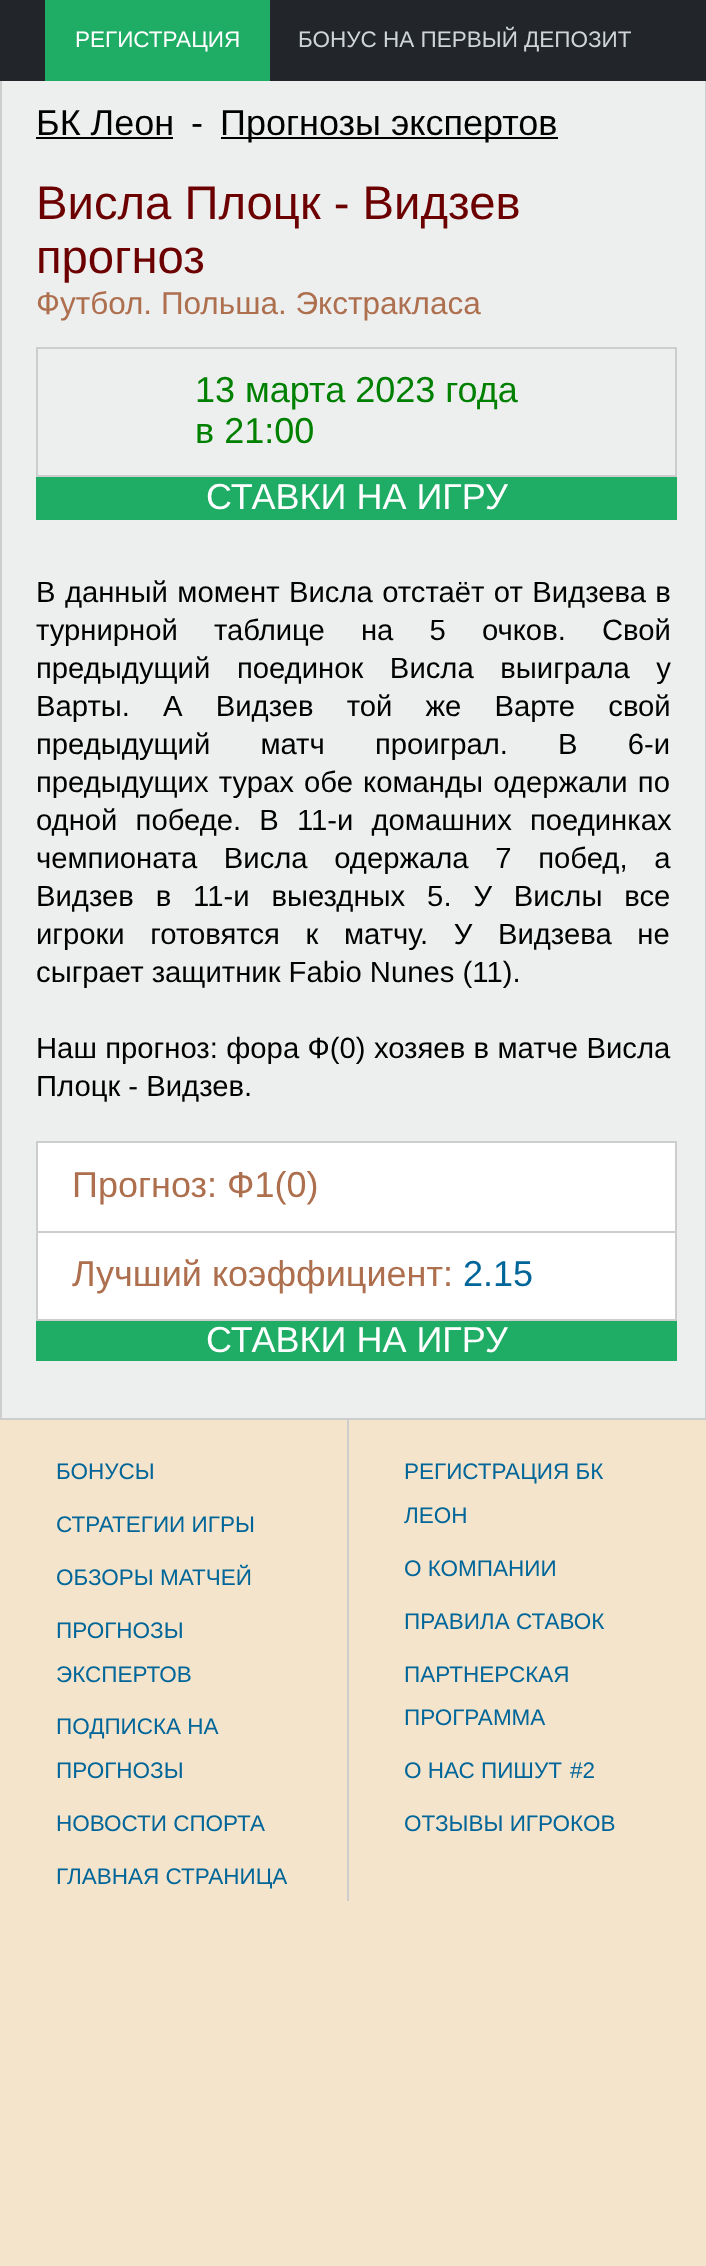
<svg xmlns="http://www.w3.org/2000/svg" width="706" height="2266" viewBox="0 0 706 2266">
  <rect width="100%" height="100%" fill="#f4e4cb"/>
  <path d="M1 80h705v1339H1z" fill="#edeeee" stroke="#cdcdcd" stroke-width="2"/>
  <path d="M0 0h706v81H0z" fill="#22262a"/>
  <path d="M45 0h225v81H45z" fill="#1fad66"/>
  <path d="M36 137h137v2H36z" fill="#000"/>
  <path d="M221 137h337v2H221z" fill="#000"/>
  <path d="M37 348h639v128H37z" fill="none" stroke="#cdcdcd" stroke-width="2"/>
  <path d="M36 477h641v43H36z" fill="#1fad66"/>
  <path d="M37 1142h639v90H37z" fill="#fff" stroke="#cdcdcd" stroke-width="2"/>
  <path d="M38 1233h637v86H38z" fill="#fff"/>
  <path d="M675 1233h2v88H675z" fill="#cdcdcd"/>
  <path d="M36 1319h641v2H36z" fill="#cdcdcd"/>
  <path d="M36 1233h2v88H36z" fill="#cdcdcd"/>
  <path d="M36 1321h641v40H36z" fill="#1fad66"/>
  <path d="M347 1420h2v481H347z" fill="#cdcdcd"/>
  <text x="75" y="47" font-family="Liberation Sans" font-size="22.5" fill="#fff">РЕГИСТРАЦИЯ</text>
  <text x="298" y="47" font-family="Liberation Sans" font-size="22.5" fill="#cfd4d8">БОНУС НА ПЕРВЫЙ ДЕПОЗИТ</text>
  <g font-family="Liberation Sans" font-size="36" fill="#000">
    <text x="36" y="135">БК Леон</text>
    <text x="191" y="135">-</text>
    <text x="220" y="135">Прогнозы экспертов</text>
  </g>
  <g font-family="Liberation Sans" font-size="47.25" fill="#6c0000">
    <text x="36" y="219">Висла Плоцк - Видзев</text>
    <text x="36" y="273">прогноз</text>
  </g>
  <text x="36" y="314" font-family="Liberation Sans" font-size="31.5" fill="#ad6f4e">Футбол. Польша. Экстракласа</text>
  <g font-family="Liberation Sans" font-size="36" fill="#008000">
    <text x="195" y="402">13 марта 2023 года</text>
    <text x="195" y="443">в 21:00</text>
  </g>
  <text x="206" y="509" font-family="Liberation Sans" font-size="36" fill="#fff">СТАВКИ НА ИГРУ</text>
  <g font-family="Liberation Sans" font-size="29.25" fill="#000">
    <text x="36" y="602" word-spacing="1.25">В данный момент Висла отстаёт от Видзева в</text>
    <text x="36" y="640" word-spacing="28">турнирной таблице на 5 очков. Свой</text>
    <text x="36" y="678" word-spacing="18.5">предыдущий поединок Висла выиграла у</text>
    <text x="36" y="716" word-spacing="25">Варты. А Видзев той же Варте свой</text>
    <text x="36" y="754" word-spacing="42">предыдущий матч проиграл. В 6-и</text>
    <text x="36" y="792" word-spacing="2">предыдущих турах обе команды одержали по</text>
    <text x="36" y="830" word-spacing="10">одной победе. В 11-и домашних поединках</text>
    <text x="36" y="868" word-spacing="18.5">чемпионата Висла одержала 7 побед, а</text>
    <text x="36" y="906" word-spacing="13.75">Видзев в 11-и выездных 5. У Вислы все</text>
    <text x="36" y="944" word-spacing="17.5">игроки готовятся к матчу. У Видзева не</text>
    <text x="36" y="982">сыграет защитник Fabio Nunes (11).</text>
    <text x="36" y="1058" word-spacing="0.25">Наш прогноз: фора Ф(0) хозяев в матче Висла</text>
    <text x="36" y="1096">Плоцк - Видзев.</text>
  </g>
  <g font-family="Liberation Sans" font-size="36" fill="#ad6f4e">
    <text x="72" y="1197">Прогноз: Ф1(0)</text>
    <text x="72" y="1286">Лучший коэффициент:</text>
  </g>
  <text x="463" y="1286" font-family="Liberation Sans" font-size="36" fill="#069">2.15</text>
  <text x="206" y="1352" font-family="Liberation Sans" font-size="36" fill="#fff">СТАВКИ НА ИГРУ</text>
  <g font-family="Liberation Sans" font-size="22.5" fill="#069">
    <text x="56" y="1479">БОНУСЫ</text>
    <text x="56" y="1532">СТРАТЕГИИ ИГРЫ</text>
    <text x="56" y="1585">ОБЗОРЫ МАТЧЕЙ</text>
    <text x="56" y="1638">ПРОГНОЗЫ</text>
    <text x="56" y="1682">ЭКСПЕРТОВ</text>
    <text x="56" y="1734">ПОДПИСКА НА</text>
    <text x="56" y="1778">ПРОГНОЗЫ</text>
    <text x="56" y="1831">НОВОСТИ СПОРТА</text>
    <text x="56" y="1884">ГЛАВНАЯ СТРАНИЦА</text>
    <text x="404" y="1479">РЕГИСТРАЦИЯ БК</text>
    <text x="404" y="1523">ЛЕОН</text>
    <text x="404" y="1576">О КОМПАНИИ</text>
    <text x="404" y="1629">ПРАВИЛА СТАВОК</text>
    <text x="404" y="1682">ПАРТНЕРСКАЯ</text>
    <text x="404" y="1725">ПРОГРАММА</text>
    <text x="404" y="1778">О НАС ПИШУТ</text>
    <text x="570" y="1778">#2</text>
    <text x="404" y="1831">ОТЗЫВЫ ИГРОКОВ</text>
  </g>
</svg>
